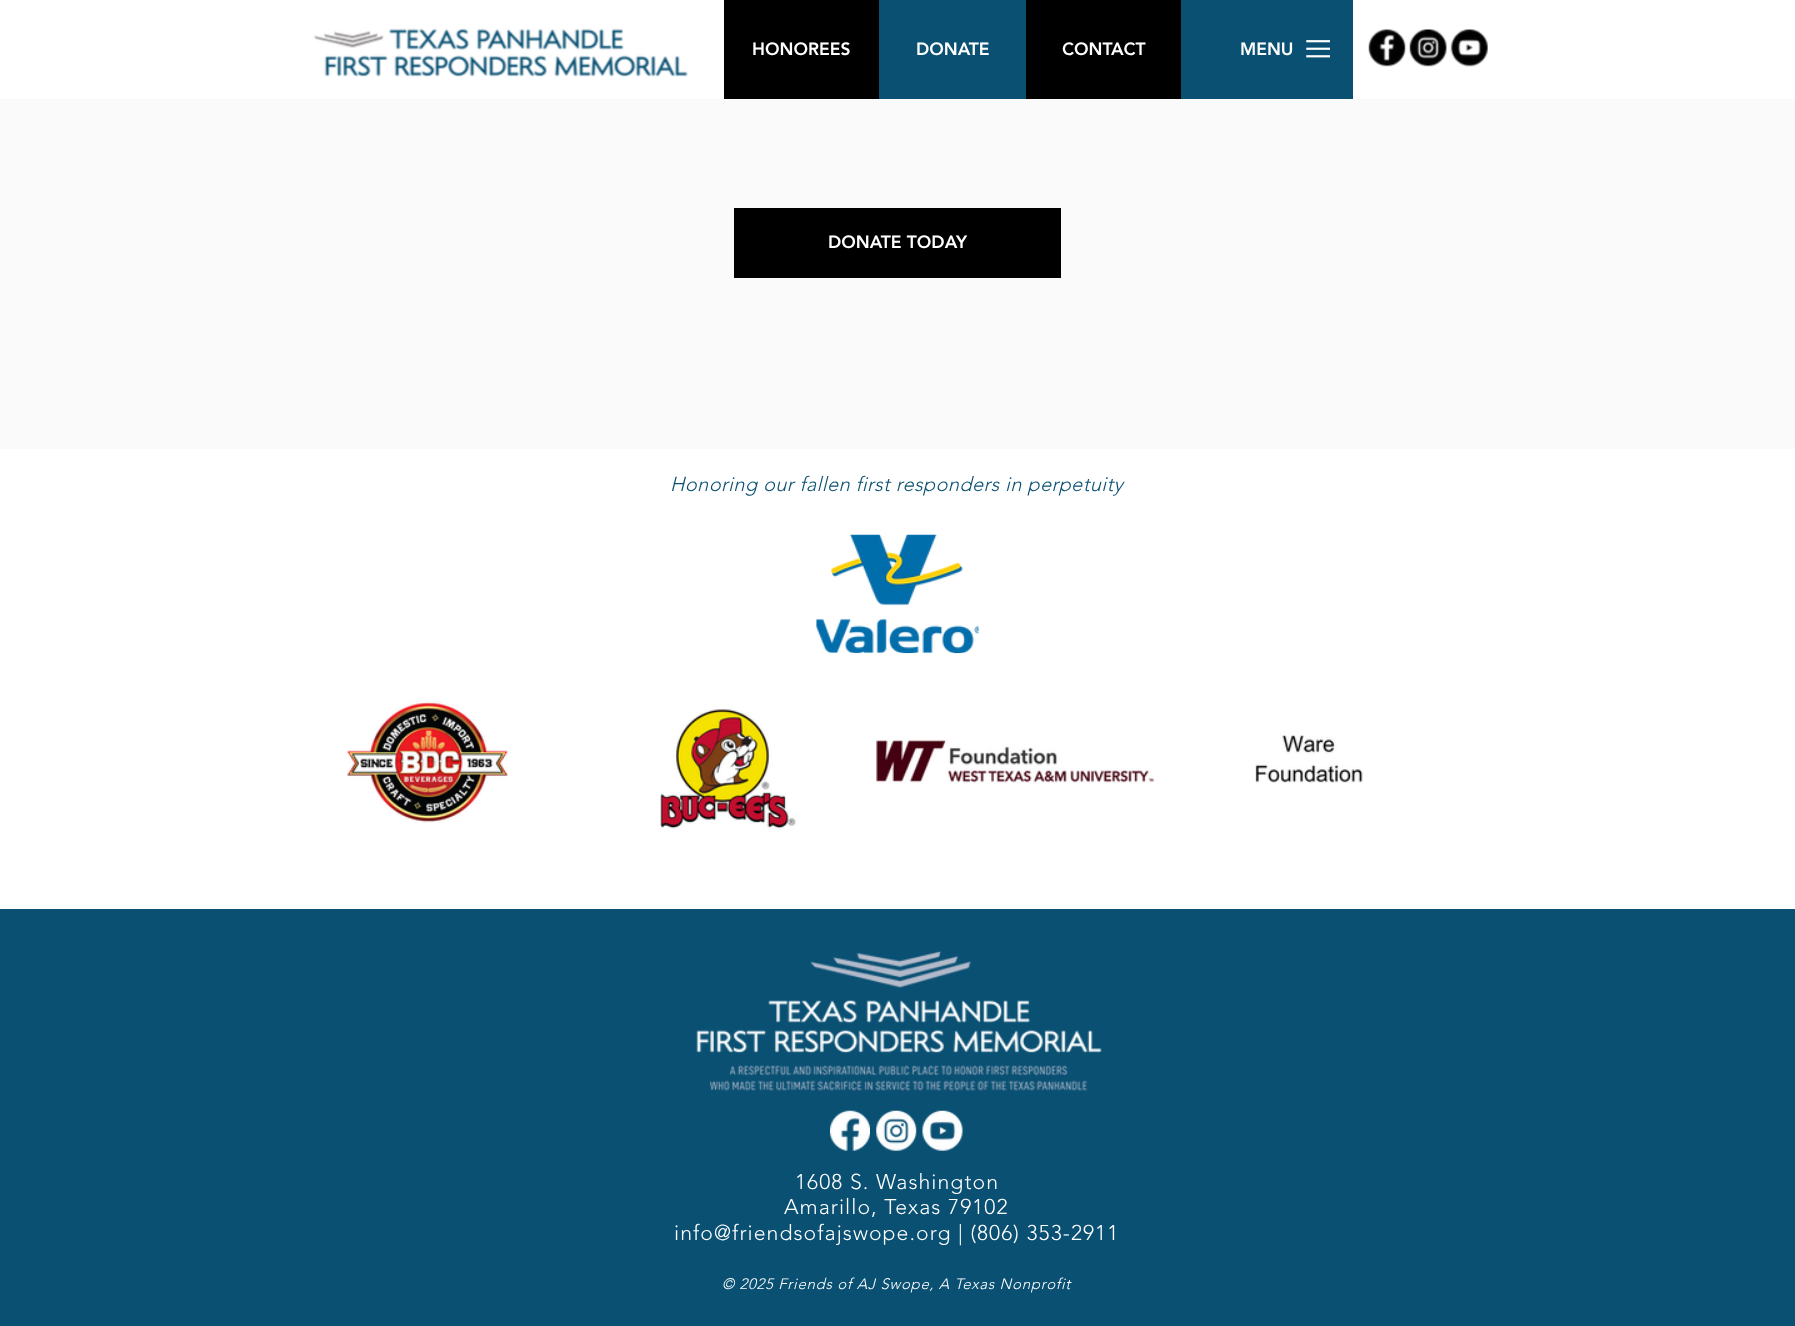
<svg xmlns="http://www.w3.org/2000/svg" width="1795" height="1326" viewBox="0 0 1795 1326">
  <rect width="100%" height="100%" fill="#fff"/>
  <image x="313" y="30" width="71" height="18" href="img/2.png"/>
  <image x="324" y="28" width="364" height="49" href="img/1.png"/>
  <path d="M724 0h155v99H724z" fill="#000"/>
  <path d="M879 0h147v99H879z" fill="#0a5073"/>
  <path d="M1026 0h155v99H1026z" fill="#000"/>
  <path d="M1181 0h172v99H1181z" fill="#0a5073"/>
  <image x="1306" y="40" width="24" height="18" href="img/3.png"/>
  <image x="1368" y="29" width="38" height="38" href="img/4.png"/>
  <image x="1409" y="29" width="38" height="38" href="img/5.png"/>
  <image x="1450" y="29" width="38" height="38" href="img/6.png"/>
  <path d="M0 99h1795v350H0z" fill="#fafafa"/>
  <path d="M734 208h327v70H734z" fill="#000"/>
  <image x="816" y="534" width="163" height="120" href="img/7.png"/>
  <image x="347" y="701" width="161" height="122" href="img/8.png"/>
  <image x="660" y="709" width="137" height="120" href="img/9.png"/>
  <image x="876" y="739" width="278" height="44" href="img/10.png"/>
  <image x="1255" y="735" width="108" height="48" href="img/11.png"/>
  <path d="M0 909h1795v417H0z" fill="#0a5073"/>
  <image x="696" y="950" width="406" height="141" href="img/12.png"/>
  <image x="830" y="1110" width="40" height="41" href="img/13.png"/>
  <image x="876" y="1110" width="41" height="41" href="img/14.png"/>
  <image x="922" y="1110" width="41" height="41" href="img/15.png"/>
  <g font-family="'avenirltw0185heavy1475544'" font-size="17.5" font-weight="900" fill="#fff">
    <text x="752" y="55">HONOREES</text>
    <text x="916" y="55">DONATE</text>
    <text x="1062" y="55">CONTACT</text>
    <text x="1240" y="55">MENU</text>
    <text x="828" y="248">DONATE TODAY</text>
  </g>
  <text x="670" y="491" font-family="'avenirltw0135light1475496'" font-size="20" font-weight="300" font-style="italic" letter-spacing="0.4" fill="#0a5073">Honoring our fallen first responders in perpetuity</text>
  <g font-family="'avenirltw0135light1475496'" font-size="21.25" font-weight="300" letter-spacing="1.05" fill="#fff">
    <text x="795" y="1189">1608 S. Washington</text>
    <text x="784" y="1214">Amarillo, Texas 79102</text>
    <text x="674" y="1240">info@friendsofajswope.org | (806) 353-2911</text>
  </g>
  <text x="722" y="1289" font-family="'avenirltw0135light1475496'" font-size="15" font-weight="300" font-style="italic" letter-spacing="0.75" fill="#fff">© 2025 Friends of AJ Swope, A Texas Nonprofit</text>
</svg>
